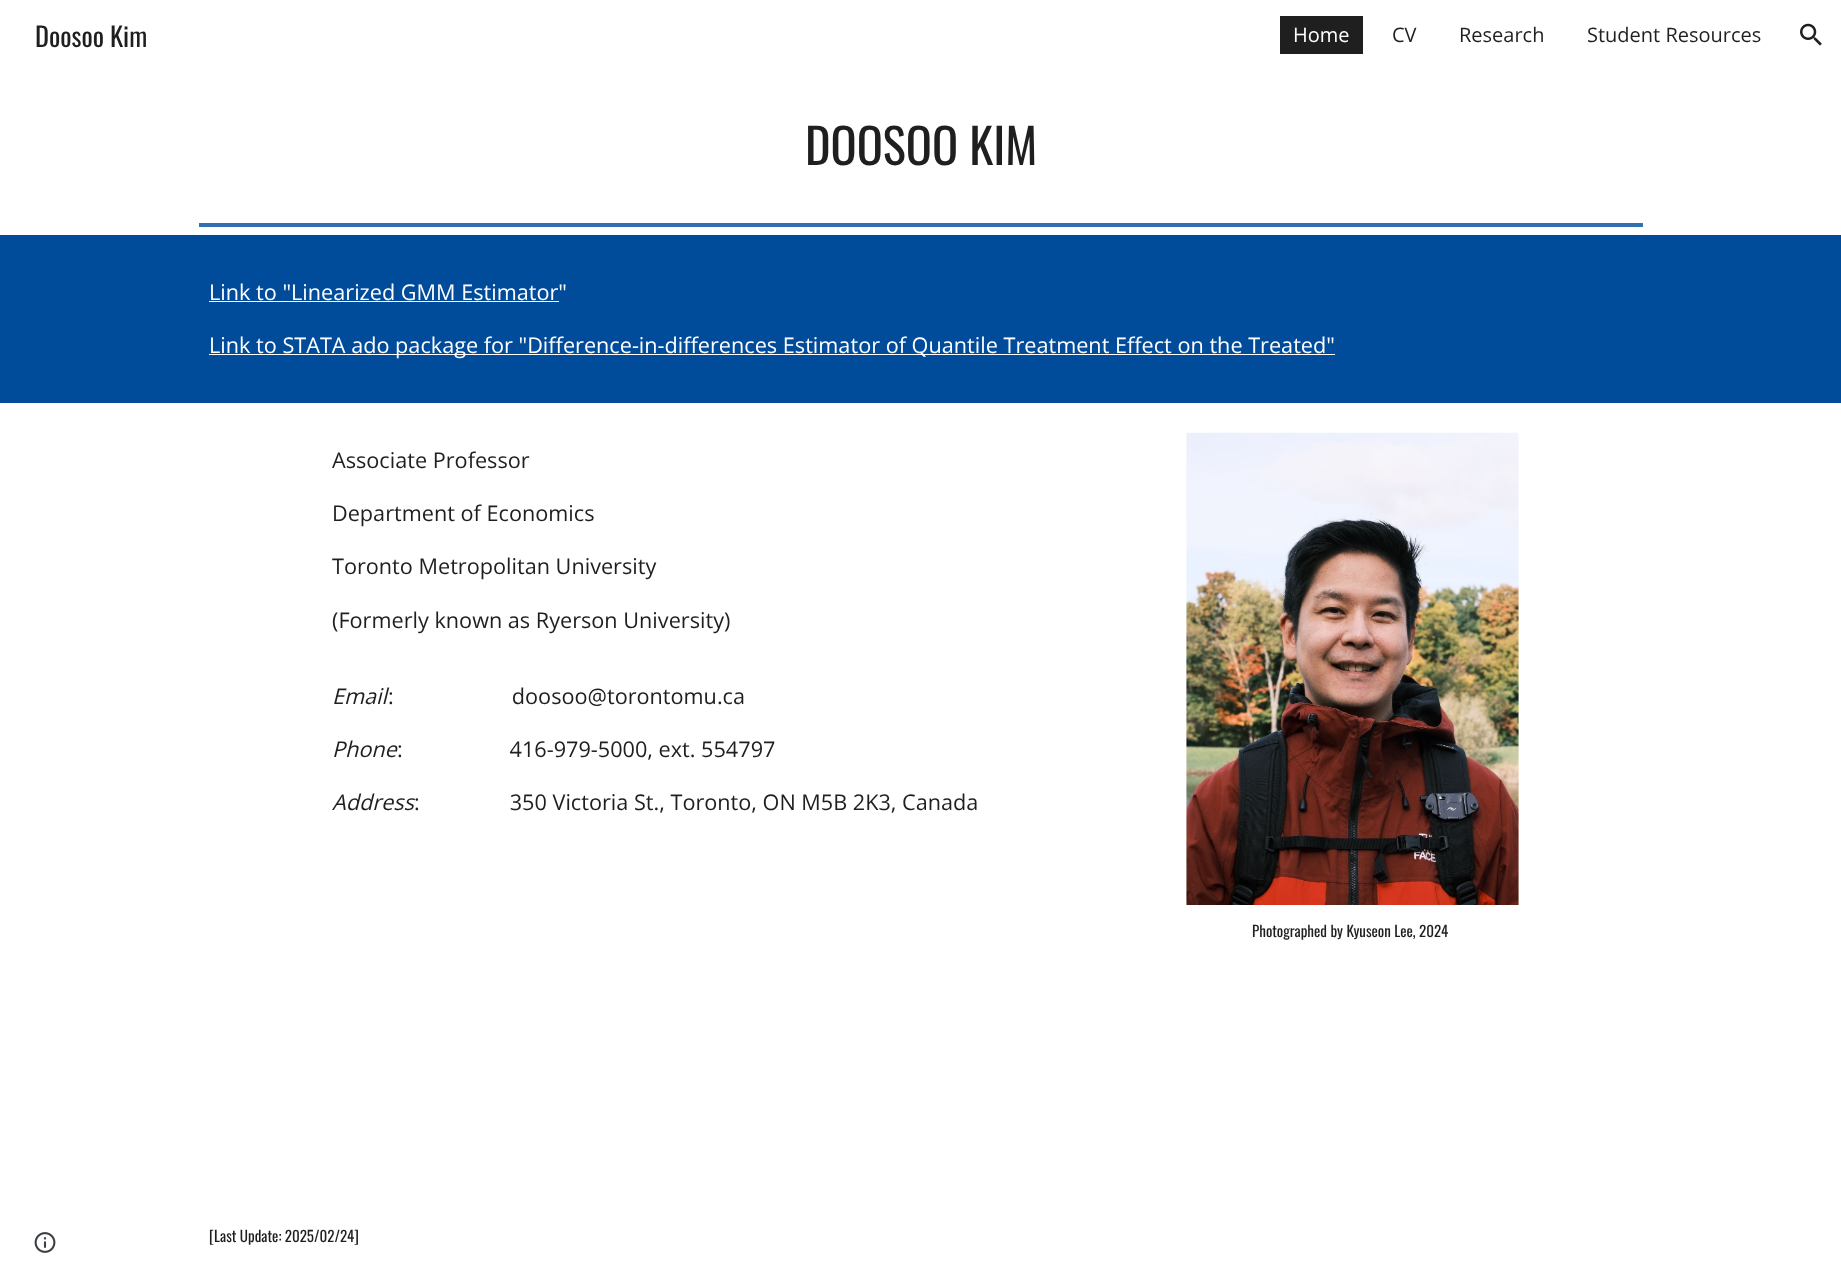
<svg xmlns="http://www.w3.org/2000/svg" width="1841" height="1285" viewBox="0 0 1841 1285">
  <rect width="100%" height="100%" fill="#fff"/>
  <path d="M1280 16h83v38H1280z" fill="#1f1f1f"/>
  <image x="1800" y="23" width="22" height="23" href="img/1.png"/>
  <path d="M199 223h1444v4H199z" fill="#3370af"/>
  <path d="M0 235h1841v168H0z" fill="#004c9b"/>
  <path d="M209 301h350v1H209z" fill="#fff"/>
  <path d="M209 354h1126v1H209z" fill="#fff"/>
  <image x="1186" y="432" width="333" height="473" href="img/2.png"/>
  <image x="34" y="1232" width="22" height="21" href="img/3.png"/>
  <text x="35" y="47" font-family="Oswald" font-size="26.5" fill="#1f1f1f">Doosoo Kim</text>
  <text x="1293" y="42" font-family="Open Sans" font-size="20" fill="#fff">Home</text>
  <g font-family="Open Sans" font-size="20" fill="#1f1f1f">
    <text x="1392" y="42">CV</text>
    <text x="1459" y="42">Research</text>
    <text x="1587" y="42">Student Resources</text>
  </g>
  <text x="805" y="165" font-family="Oswald" font-size="48.5" fill="#1f1f1f">DOOSOO KIM</text>
  <g font-family="Open Sans" font-size="21.67" fill="#fff">
    <text x="209" y="300">Link to "Linearized GMM Estimator"</text>
    <text x="209" y="353">Link to STATA ado package for "Difference-in-differences Estimator of Quantile Treatment Effect on the Treated"</text>
  </g>
  <g font-family="Open Sans" font-size="21.67" fill="#1f1f1f">
    <text x="332" y="468">Associate Professor</text>
    <text x="332" y="521">Department of Economics</text>
    <text x="332" y="574">Toronto Metropolitan University</text>
    <text x="332" y="628">(Formerly known as Ryerson University)</text>
  </g>
  <text x="332" y="704" font-family="Open Sans" font-size="21.67" font-style="italic" fill="#1f1f1f">Email</text>
  <text x="388" y="704" font-family="Open Sans" font-size="21.67" fill="#1f1f1f" xml:space="preserve">:                     doosoo@torontomu.ca</text>
  <text x="332" y="757" font-family="Open Sans" font-size="21.67" font-style="italic" fill="#1f1f1f">Phone</text>
  <text x="397" y="757" font-family="Open Sans" font-size="21.67" fill="#1f1f1f" xml:space="preserve">:                   416-979-5000, ext. 554797</text>
  <text x="332" y="810" font-family="Open Sans" font-size="21.67" font-style="italic" fill="#1f1f1f">Address</text>
  <text x="414" y="810" font-family="Open Sans" font-size="21.67" fill="#1f1f1f" xml:space="preserve">:                350 Victoria St., Toronto, ON M5B 2K3, Canada</text>
  <g font-family="Oswald" font-size="15" fill="#1f1f1f">
    <text x="1252" y="937">Photographed by Kyuseon Lee, 2024</text>
    <text x="209" y="1242">[Last Update: 2025/02/24]</text>
  </g>
</svg>
